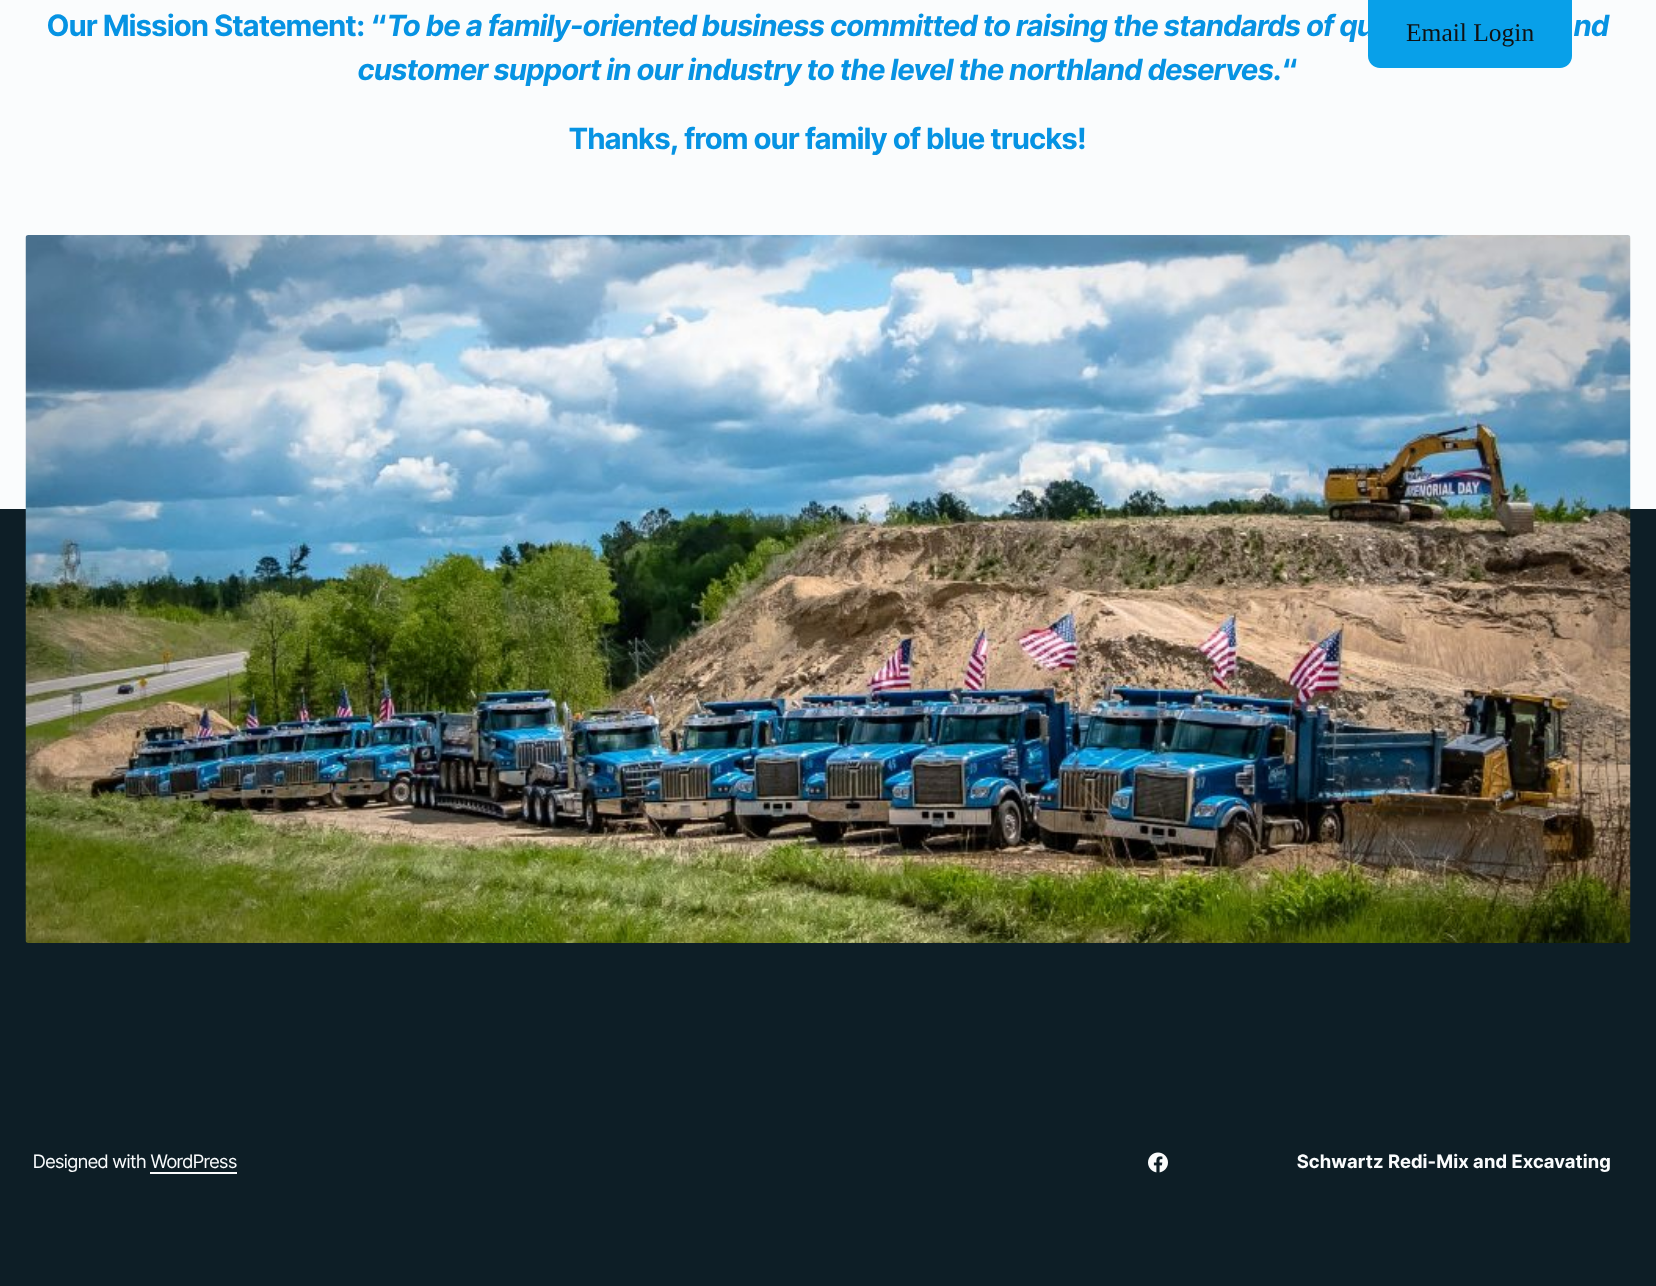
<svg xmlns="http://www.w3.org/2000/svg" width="1656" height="1286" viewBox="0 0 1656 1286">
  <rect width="100%" height="100%" fill="#fafcfd"/>
  <path d="M0 509h1656v777H0z" fill="#0d1e26"/>
  <image x="25" y="235" width="1606" height="708" href="img/1.png"/>
  <path d="M150 1172h87v2H150z" fill="#fafcfd"/>
  <image x="1148" y="1152" width="20" height="21" href="img/2.png"/>
  <text x="47" y="36" font-family="Inter Tight" font-size="29.35" font-weight="bold" fill="#0693e3">Our Mission Statement: “</text>
  <g font-family="Inter Tight" font-size="29.35" font-weight="bold" font-style="italic" fill="#0693e3">
    <text x="387" y="36">To be a family-oriented business committed to raising the standards of qu</text>
    <text x="1574" y="36">nd</text>
    <text x="358" y="80">customer support in our industry to the level the northland deserves.</text>
  </g>
  <g font-family="Inter Tight" font-size="29.35" font-weight="bold" fill="#0693e3">
    <text x="1282" y="80">“</text>
    <text x="569" y="149">Thanks, from our family of blue trucks!</text>
  </g>
  <text x="33" y="1168" font-family="Inter Tight" font-size="18.5" fill="#fafcfd">Designed with WordPress</text>
  <text x="1297" y="1168" font-family="Inter Tight" font-size="18.5" font-weight="bold" letter-spacing="0.6" fill="#fafcfd">Schwartz Redi-Mix and Excavating</text>
  <path d="M1368 0H1572V56C1572 62.5 1566.5 68 1560 68H1380C1373.5 68 1368 62.5 1368 56Z" fill="#08a0e9"/>
  <text x="1406" y="41" font-family="Liberation Serif" font-size="25.5" fill="#111">Email Login</text>
</svg>
